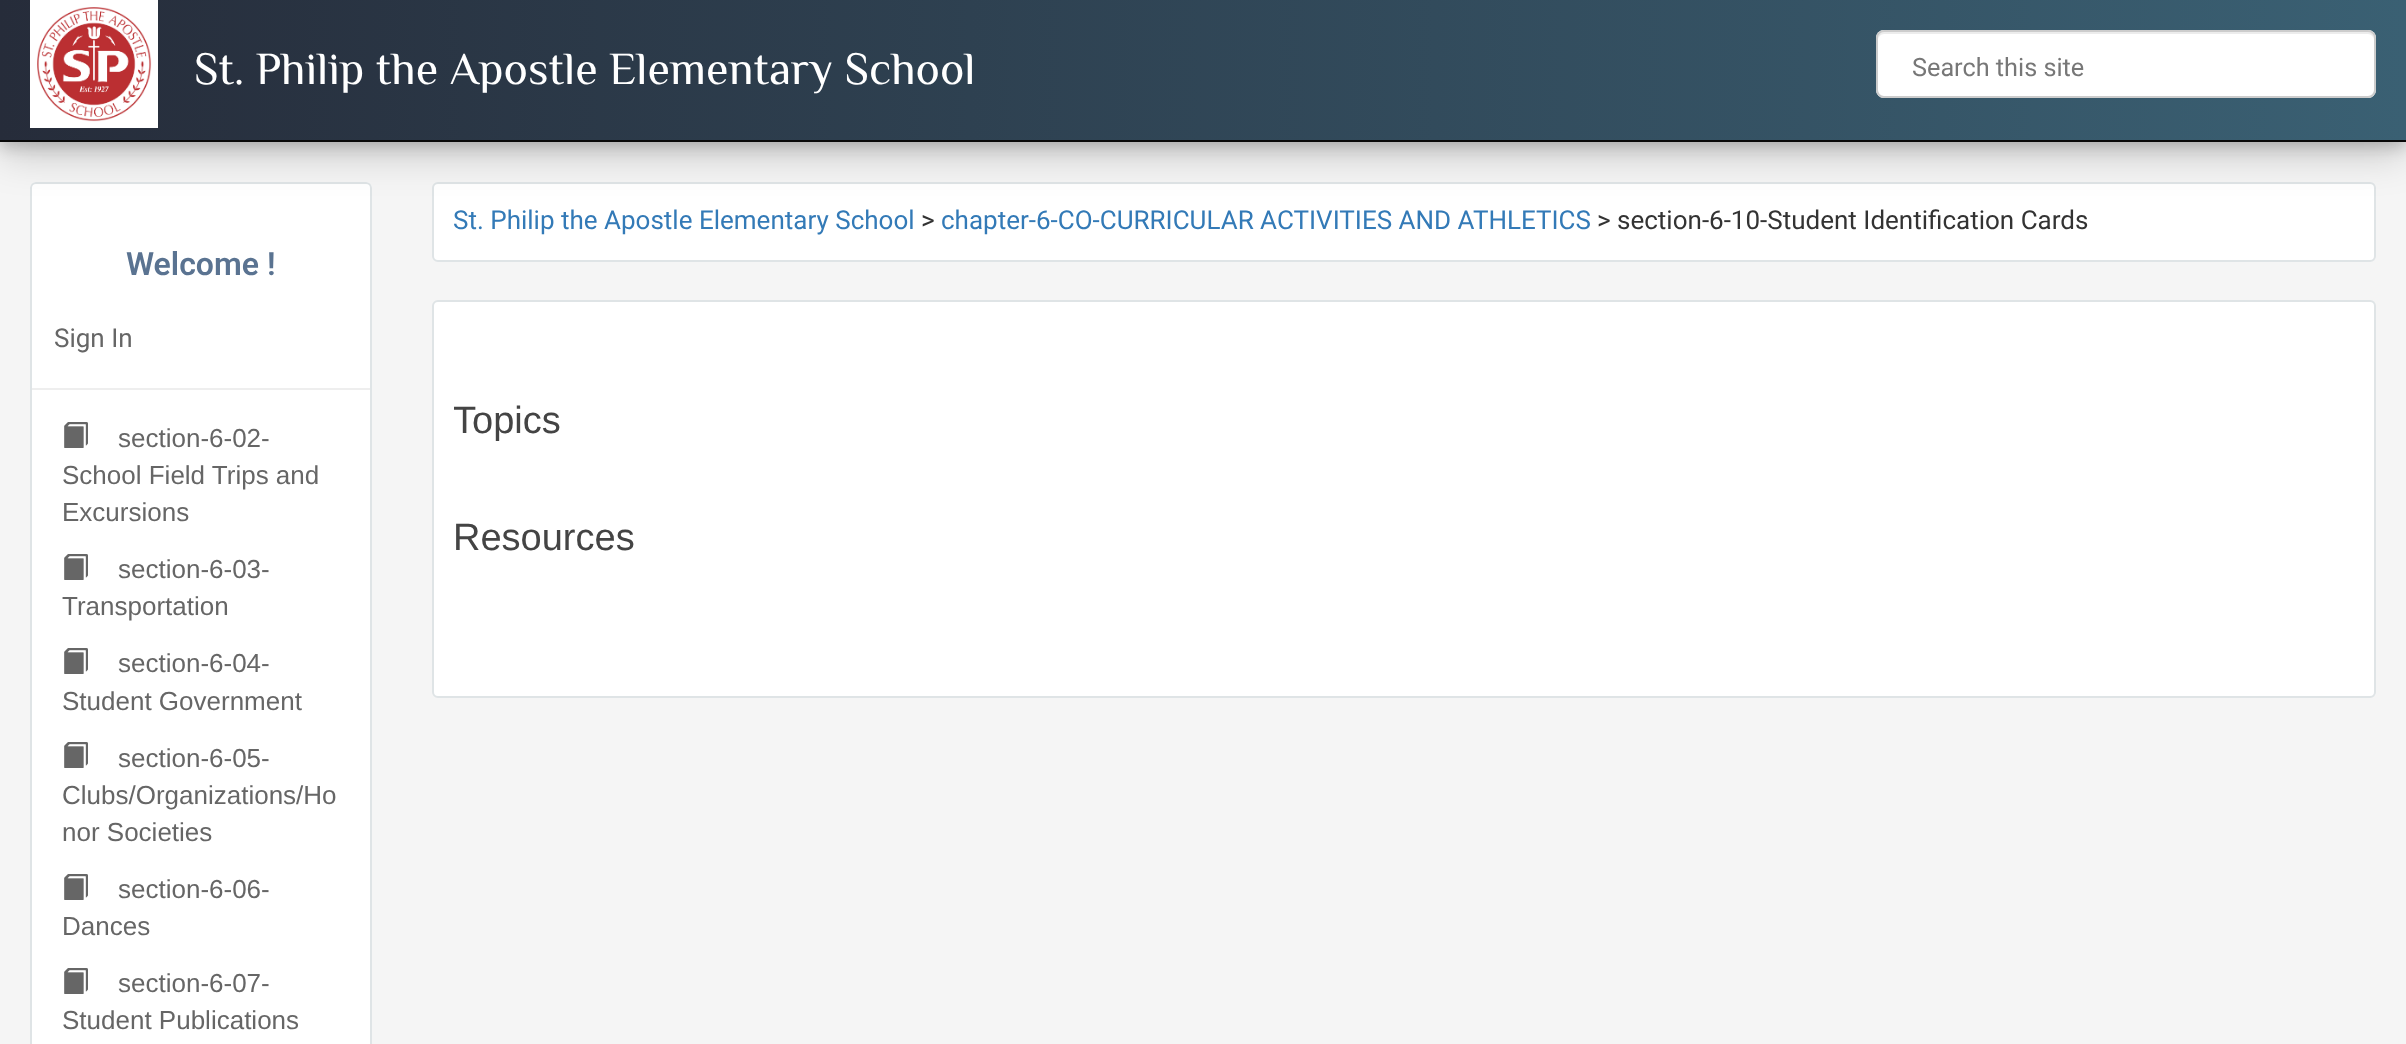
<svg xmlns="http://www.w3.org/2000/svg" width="2406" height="1044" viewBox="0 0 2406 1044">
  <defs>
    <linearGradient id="g1" gradientUnits="userSpaceOnUse" x1="0" y1="70" x2="2406" y2="70"><stop offset="0" stop-color="#262c3a"/><stop offset="1" stop-color="#3a6073"/></linearGradient>
    <clipPath id="clip1"><path d="M454 402h1900v42H454z"/></clipPath>
  </defs>
  <rect width="100%" height="100%" fill="#f5f5f5"/>
  <path d="M36 182H366C369.5 182 372 184.5 372 188V1044H30V188C30 184.5 32.5 182 36 182Z" fill="#fff"/>
  <rect x="31" y="183" width="340" height="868" rx="5" fill="none" stroke="#dfe4e6" stroke-width="2"/>
  <rect x="433" y="183" width="1942" height="78" rx="5" fill="#fff" stroke="#dfe4e6" stroke-width="2"/>
  <path d="M0 12h2406v142H0z" fill="#00000030" filter="blur(20px)"/>
  <path d="M0 4h2406v142H0z" fill="#00000033" filter="blur(8px)"/>
  <path d="M0 0h2406v140H0z" fill="url(#g1)"/>
  <path d="M0 140h2406v2H0z" fill="#080808"/>
  <image x="30" y="0" width="128" height="128" href="img/1.png"/>
  <rect x="1876" y="30" width="500" height="68" rx="8" fill="#fff"/>
  <path d="M1884 34H2368C2371 34 2374 37 2374 40C2374 36 2373 32 2368 32H1884C1879 32 1878 36 1878 40C1878 37 1881 34 1884 34Z" fill="#ececec"/>
  <rect x="1877" y="31" width="498" height="66" rx="7" fill="none" stroke="#ccc" stroke-width="2"/>
  <path d="M32 388h338v2H32z" fill="#eee"/>
  <image x="64" y="422" width="24" height="26" href="img/2.png"/>
  <image x="64" y="554" width="24" height="26" href="img/2.png"/>
  <image x="64" y="648" width="24" height="26" href="img/2.png"/>
  <image x="64" y="742" width="24" height="26" href="img/2.png"/>
  <image x="64" y="874" width="24" height="26" href="img/2.png"/>
  <image x="64" y="968" width="24" height="26" href="img/2.png"/>
  <rect x="433" y="301" width="1942" height="396" rx="5" fill="#fff" stroke="#dfe4e6" stroke-width="2"/>
  <text x="194" y="84" font-family="Philosopher" font-size="46" fill="#fff">St. Philip the Apostle Elementary School</text>
  <text x="1912" y="76" font-family="Roboto" font-size="25.25" fill="#777">Search this site</text>
  <text x="126" y="275" font-family="Roboto" font-size="32" font-weight="600" fill="#5a7391">Welcome !</text>
  <text x="54" y="347" font-family="Roboto" font-size="26" fill="#666">Sign In</text>
  <g font-family="Liberation Sans" font-size="26" fill="#666">
    <text x="118" y="447">section-6-02-</text>
    <text x="62" y="484">School Field Trips and</text>
    <text x="62" y="521">Excursions</text>
    <text x="118" y="578">section-6-03-</text>
    <text x="62" y="615">Transportation</text>
    <text x="118" y="672">section-6-04-</text>
    <text x="62" y="710">Student Government</text>
    <text x="118" y="767">section-6-05-</text>
    <text x="62" y="804">Clubs/Organizations/Ho</text>
    <text x="62" y="841">nor Societies</text>
    <text x="118" y="898">section-6-06-</text>
    <text x="62" y="935">Dances</text>
    <text x="118" y="992">section-6-07-</text>
    <text x="62" y="1029">Student Publications</text>
  </g>
  <text x="453" y="229" font-family="Roboto" font-size="26" fill="#337ab7">St. Philip the Apostle Elementary School</text>
  <text x="921" y="229" font-family="Roboto" font-size="26" fill="#333">&gt;</text>
  <text x="941" y="229" font-family="Roboto" font-size="26" fill="#337ab7">chapter-6-CO-CURRICULAR ACTIVITIES AND ATHLETICS</text>
  <text x="1597" y="229" font-family="Roboto" font-size="26" fill="#333">&gt; section-6-10-Student Identification Cards</text>
  <g clip-path="url(#clip1)">
    <text x="453" y="433" font-family="Liberation Sans" font-size="38" fill="#444">Topics</text>
  </g>
  <text x="453" y="550" font-family="Liberation Sans" font-size="38" fill="#444">Resources</text>
</svg>
